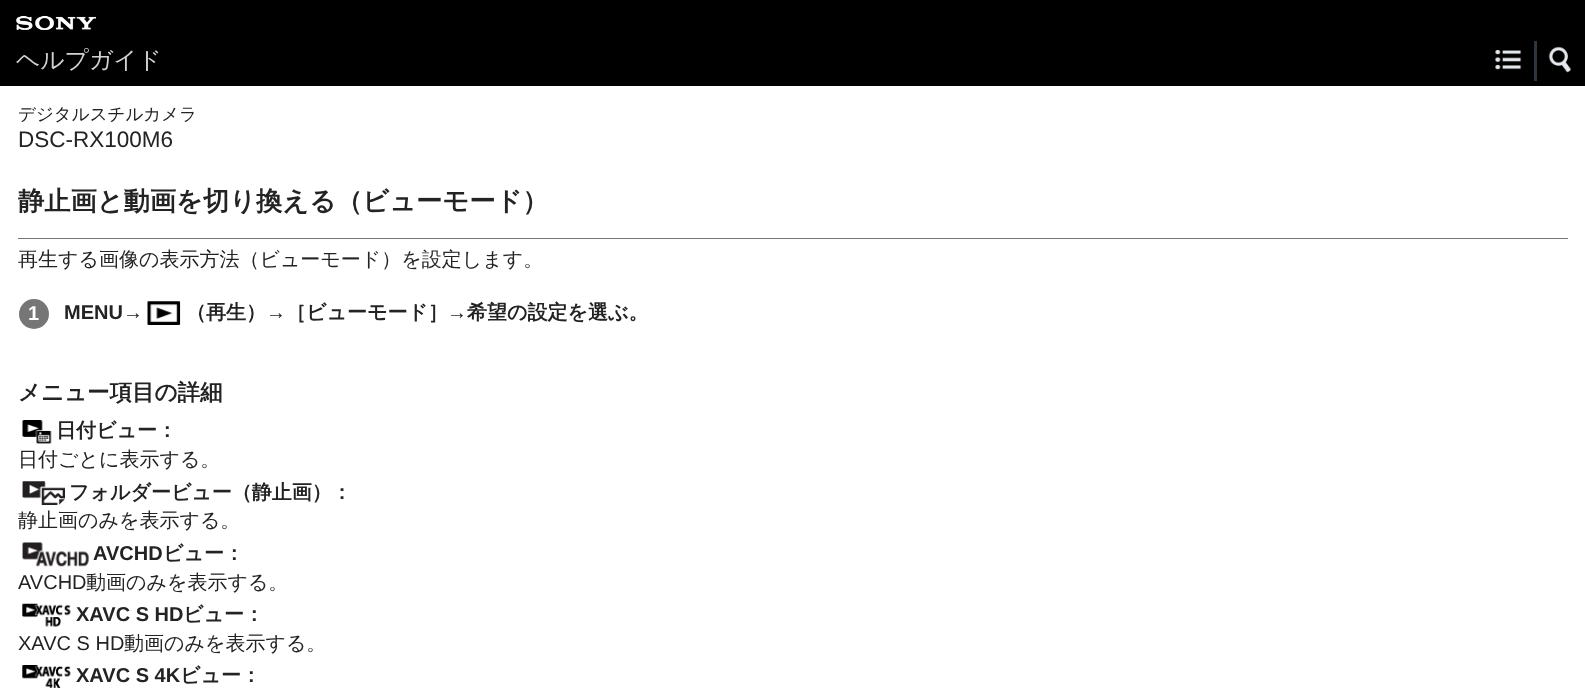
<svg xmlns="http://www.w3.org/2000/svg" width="1585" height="700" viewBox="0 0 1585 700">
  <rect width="100%" height="100%" fill="#fff"/>
  <path d="M0 0h1585v86H0z" fill="#000"/>
  <image x="16" y="15" width="80" height="15" href="img/1.png"/>
  <path d="M1534 41h3v40H1534z" fill="#2f353d"/>
  <image x="1494" y="49" width="28" height="21" href="img/2.png"/>
  <image x="1548" y="46" width="24" height="27" href="img/3.png"/>
  <path d="M18 238h1550v1H18z" fill="#767676"/>
  <circle cx="34" cy="314" r="15" fill="#767676"/>
  <image x="147" y="301" width="34" height="24" href="img/4.png"/>
  <image x="22" y="420" width="30" height="24" href="img/5.png"/>
  <image x="22" y="481" width="43" height="24" href="img/6.png"/>
  <image x="22" y="542" width="67" height="25" href="img/7.png"/>
  <image x="22" y="603" width="49" height="24" href="img/8.png"/>
  <image x="22" y="665" width="49" height="23" href="img/9.png"/>
  <text x="16" y="68" font-family="WenQuanYi Zen Hei" font-size="23.75" font-weight="500" fill="#d2d2d2">ヘルプガイド</text>
  <text x="18" y="120" font-family="WenQuanYi Zen Hei" font-size="17.5" font-weight="500" fill="#232323">デジタルスチルカメラ</text>
  <text x="18" y="147" font-family="Liberation Sans" font-size="22.5" fill="#232323">DSC-RX100M6</text>
  <text x="18" y="210" font-family="WenQuanYi Zen Hei" font-size="26.25" font-weight="bold" fill="#232323">静止画と動画を切り換える（ビューモード）</text>
  <text x="18" y="266" font-family="WenQuanYi Zen Hei" font-size="20" font-weight="500" fill="#232323">再生する画像の表示方法（ビューモード）を設定します。</text>
  <text x="28" y="320" font-family="Liberation Sans" font-size="20" font-weight="bold" fill="#fff">1</text>
  <text x="64" y="319" font-family="Liberation Sans" font-size="20" font-weight="bold" fill="#232323">MENU→</text>
  <text x="186" y="319" font-family="WenQuanYi Zen Hei" font-size="20" font-weight="bold" fill="#232323">（再生）</text>
  <text x="266" y="319" font-family="Liberation Sans" font-size="20" font-weight="bold" fill="#232323">→</text>
  <text x="286" y="319" font-family="WenQuanYi Zen Hei" font-size="20" font-weight="bold" fill="#232323">［ビューモード］</text>
  <text x="447" y="319" font-family="Liberation Sans" font-size="20" font-weight="bold" fill="#232323">→</text>
  <text x="467" y="319" font-family="WenQuanYi Zen Hei" font-size="20" font-weight="bold" fill="#232323">希望の設定を選ぶ。</text>
  <text x="18" y="400" font-family="WenQuanYi Zen Hei" font-size="22.5" font-weight="bold" fill="#232323">メニュー項目の詳細</text>
  <text x="56" y="437" font-family="WenQuanYi Zen Hei" font-size="20" font-weight="bold" fill="#232323">日付ビュー：</text>
  <text x="18" y="466" font-family="WenQuanYi Zen Hei" font-size="20" font-weight="500" fill="#232323">日付ごとに表示する。</text>
  <text x="69" y="499" font-family="WenQuanYi Zen Hei" font-size="20" font-weight="bold" fill="#232323">フォルダービュー（静止画）：</text>
  <text x="18" y="527" font-family="WenQuanYi Zen Hei" font-size="20" font-weight="500" fill="#232323">静止画のみを表示する。</text>
  <text x="93" y="560" font-family="Liberation Sans" font-size="20" font-weight="bold" fill="#232323">AVCHD</text>
  <text x="163" y="560" font-family="WenQuanYi Zen Hei" font-size="20" font-weight="bold" fill="#232323">ビュー：</text>
  <text x="18" y="589" font-family="Liberation Sans" font-size="20" fill="#232323">AVCHD</text>
  <text x="86" y="589" font-family="WenQuanYi Zen Hei" font-size="20" font-weight="500" fill="#232323">動画のみを表示する。</text>
  <text x="76" y="621" font-family="Liberation Sans" font-size="20" font-weight="bold" fill="#232323">XAVC S HD</text>
  <text x="183" y="621" font-family="WenQuanYi Zen Hei" font-size="20" font-weight="bold" fill="#232323">ビュー：</text>
  <text x="18" y="650" font-family="Liberation Sans" font-size="20" fill="#232323">XAVC S HD</text>
  <text x="124" y="650" font-family="WenQuanYi Zen Hei" font-size="20" font-weight="500" fill="#232323">動画のみを表示する。</text>
  <text x="76" y="682" font-family="Liberation Sans" font-size="20" font-weight="bold" fill="#232323">XAVC S 4K</text>
  <text x="180" y="682" font-family="WenQuanYi Zen Hei" font-size="20" font-weight="bold" fill="#232323">ビュー：</text>
</svg>
